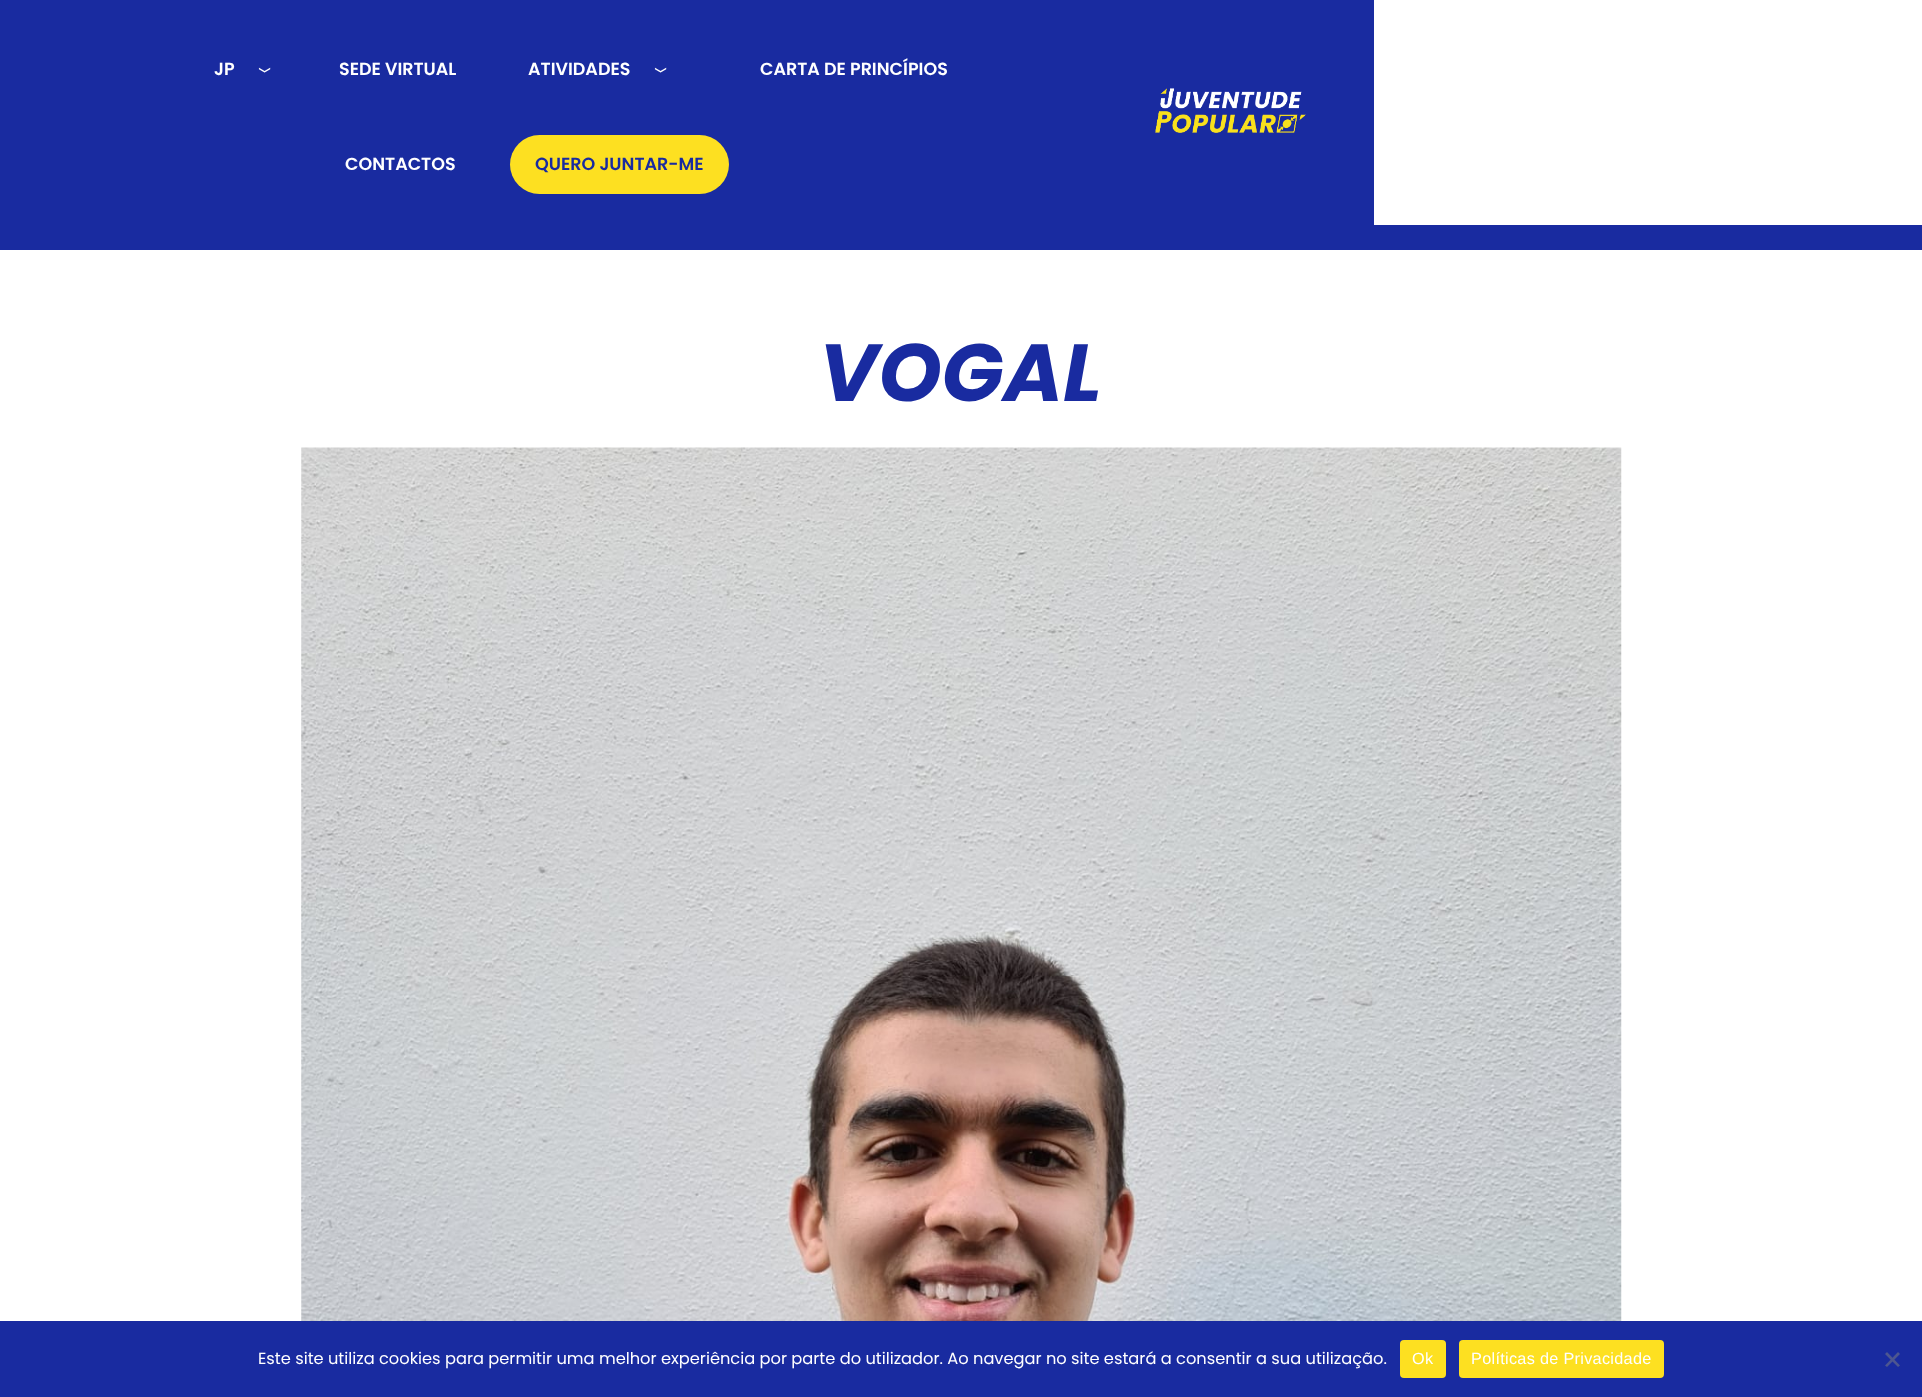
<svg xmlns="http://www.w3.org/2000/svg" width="1922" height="1397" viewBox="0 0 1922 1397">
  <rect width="100%" height="100%" fill="#fff"/>
  <path d="M0 0h1374v225H0z" fill="#192ba0"/>
  <rect x="510" y="135" width="219" height="59" rx="29.5" fill="#fde021"/>
  <image x="1155" y="88" width="151" height="45" href="img/1.png"/>
  <path d="M0 225h1922v25H0z" fill="#192ba0"/>
  <image x="301" y="447" width="1321" height="874" href="img/2.png"/>
  <path d="M0 1321h1922v76H0z" fill="#192ba0"/>
  <rect x="1400" y="1340" width="46" height="38" rx="4" fill="#fde021"/>
  <rect x="1459" y="1340" width="205" height="38" rx="4" fill="#fde021"/>
  <path d="M1898 1352L1900 1354L1887 1367L1885 1365.5Z" fill="#4d5690"/>
  <path d="M1885 1354L1887 1352L1900 1365.5L1898 1367Z" fill="#4d5690"/>
  <text x="214" y="75" font-family="Poppins" font-size="17.5" font-weight="600" fill="#fff">JP</text>
  <text x="274" y="74" transform="rotate(-90 274 74)" font-family="Poppins" font-size="32" font-weight="200" fill="#fff">‹</text>
  <g font-family="Poppins" font-size="17.5" font-weight="600" fill="#fff">
    <text x="339" y="75">SEDE VIRTUAL</text>
    <text x="528" y="75">ATIVIDADES</text>
  </g>
  <text x="670" y="74" transform="rotate(-90 670 74)" font-family="Poppins" font-size="32" font-weight="200" fill="#fff">‹</text>
  <g font-family="Poppins" font-size="17.5" font-weight="600" fill="#fff">
    <text x="760" y="75">CARTA DE PRINCÍPIOS</text>
    <text x="345" y="170">CONTACTOS</text>
  </g>
  <text x="535" y="170" font-family="Poppins" font-size="17.5" font-weight="600" fill="#192ba0">QUERO JUNTAR-ME</text>
  <text x="819" y="401" font-family="Poppins" font-size="81" font-weight="bold" font-style="italic" fill="#192ba0">VOGAL</text>
  <text x="258" y="1364" font-family="Poppins" font-size="16.25" fill="#fff">Este site utiliza cookies para permitir uma melhor experiência por parte do utilizador. Ao navegar no site estará a consentir a sua utilização.</text>
  <g font-family="Liberation Sans" font-size="16.25" letter-spacing="0.3" fill="#fff">
    <text x="1412" y="1364">Ok</text>
    <text x="1471" y="1364">Políticas de Privacidade</text>
  </g>
</svg>
